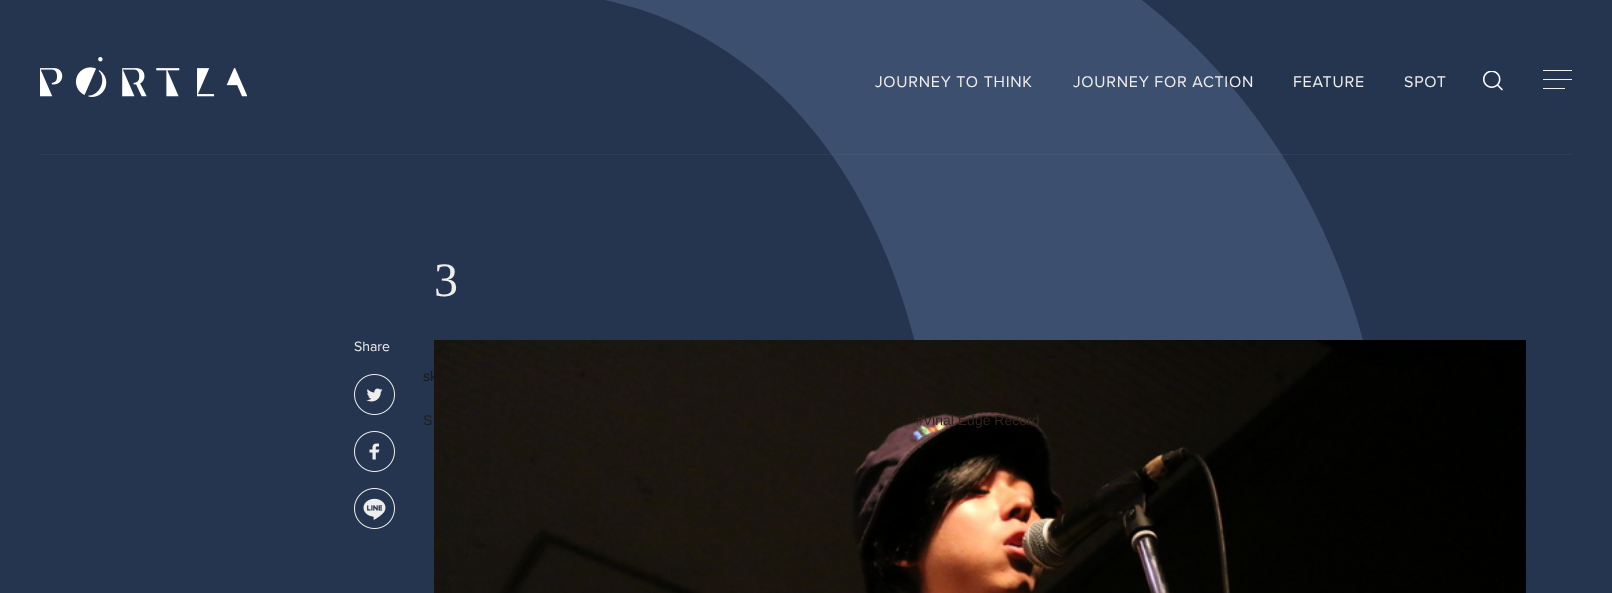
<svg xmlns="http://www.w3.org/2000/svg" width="1612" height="593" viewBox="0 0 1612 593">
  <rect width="100%" height="100%" fill="#25344f"/>
  <image x="605" y="0" width="758" height="340" href="img/1.png"/>
  <path d="M40 154h1532v1H40z" fill="#eeeeee0d"/>
  <image x="40" y="57" width="207" height="40" href="img/2.png"/>
  <image x="1483" y="71" width="20" height="20" href="img/3.png"/>
  <path d="M1543 70h29v1H1543z" fill="#eee"/>
  <path d="M1543 79h29v1H1543z" fill="#eee"/>
  <path d="M1543 88h22v1H1543z" fill="#eee"/>
  <image x="354" y="374" width="41" height="41" href="img/4.png"/>
  <image x="354" y="431" width="41" height="41" href="img/5.png"/>
  <image x="354" y="488" width="41" height="41" href="img/6.png"/>
  <image x="434" y="340" width="1092" height="253" href="img/7.png"/>
  <g font-family="Proxima Nova" font-size="16" letter-spacing="0.75" fill="#eee">
    <text x="875" y="87">JOURNEY TO THINK</text>
    <text x="1073" y="87">JOURNEY FOR ACTION</text>
    <text x="1293" y="87">FEATURE</text>
    <text x="1404" y="87">SPOT</text>
  </g>
  <text x="434" y="296" font-family="Liberation Serif" font-size="48" fill="#eee">3</text>
  <text x="354" y="351" font-family="Proxima Nova" font-size="14" fill="#eee">Share</text>
  <text x="423" y="381" font-family="Liberation Sans" font-size="14" fill="#1c1a18">sk</text>
  <text x="423" y="425" font-family="Liberation Sans" font-size="14" fill="#1d1d21">S</text>
  <text x="916" y="425" font-family="Liberation Sans" font-size="14" fill="#392724">#</text>
  <text x="923" y="425" font-family="Liberation Sans" font-size="14" fill="#30231f">Vinal Edge Record</text>
</svg>
